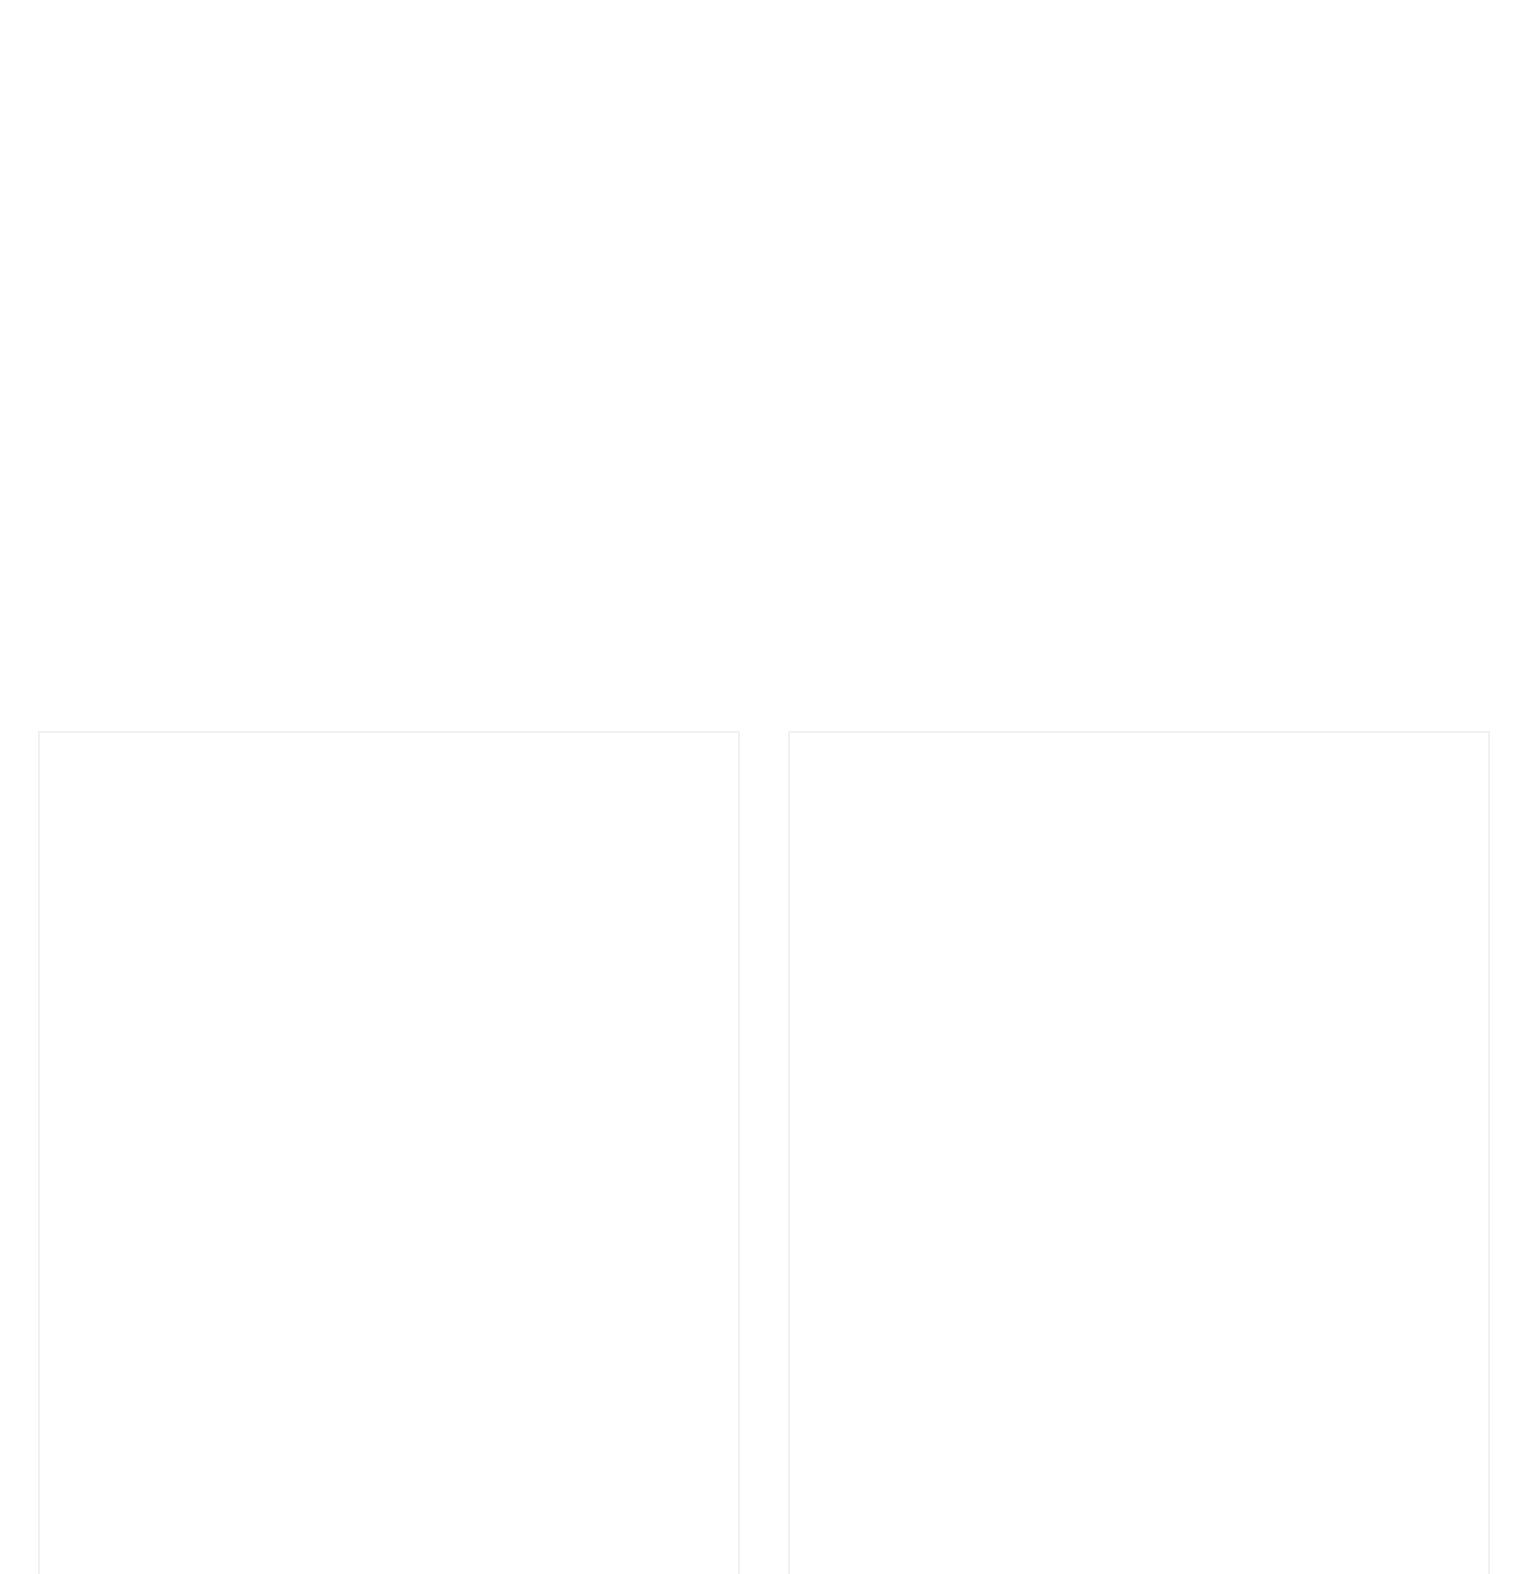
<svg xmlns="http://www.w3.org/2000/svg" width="1526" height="1574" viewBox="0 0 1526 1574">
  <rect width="100%" height="100%" fill="#fff"/>
  <path d="M39 732h700v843H39z" fill="none" stroke="#f1f1f1" stroke-width="2"/>
  <path d="M789 732h700v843H789z" fill="none" stroke="#f1f1f1" stroke-width="2"/>
</svg>
